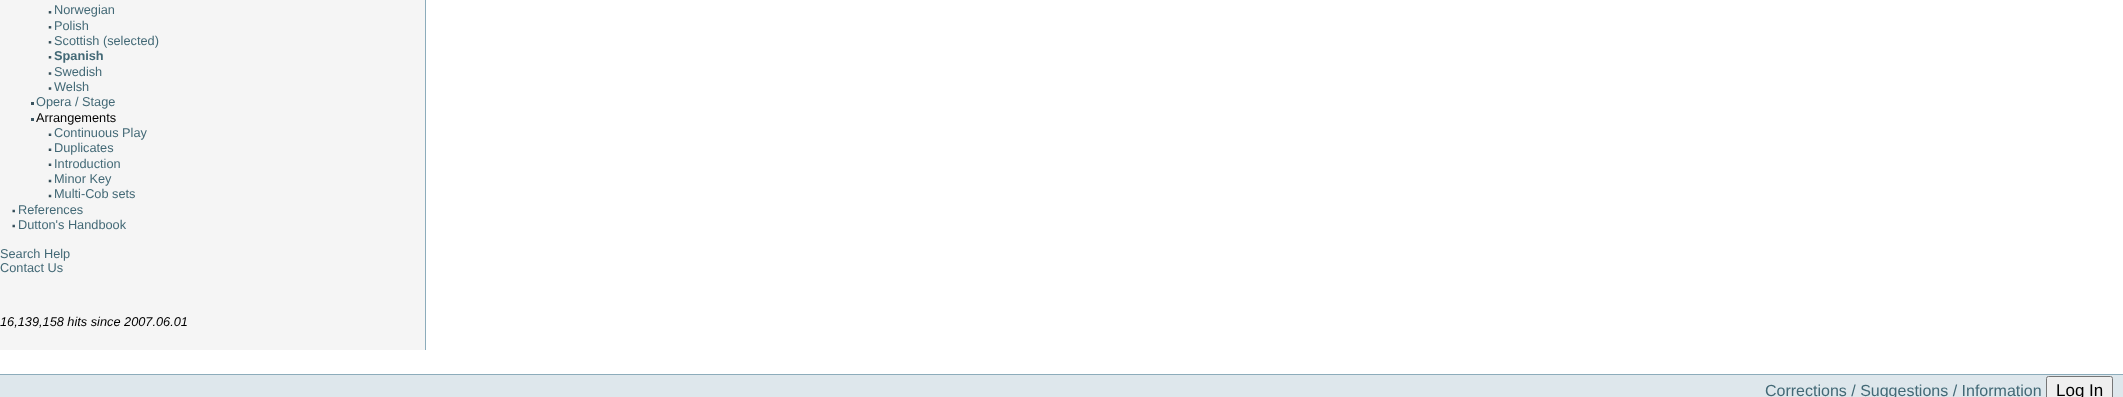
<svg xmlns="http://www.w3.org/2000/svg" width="2123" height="397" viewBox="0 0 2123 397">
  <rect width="100%" height="100%" fill="#fff"/>
  <path d="M0 0h425v350H0z" fill="#f5f5f5"/>
  <path d="M425 0h1v350H425z" fill="#8cacbb"/>
  <image x="48" y="11" width="4" height="3" href="img/1.png"/>
  <image x="48" y="26" width="4" height="3" href="img/1.png"/>
  <image x="48" y="41" width="4" height="3" href="img/1.png"/>
  <image x="48" y="56" width="4" height="3" href="img/1.png"/>
  <image x="48" y="72" width="4" height="3" href="img/2.png"/>
  <image x="48" y="87" width="4" height="3" href="img/2.png"/>
  <path d="M31 102h3v3H31z" fill="#3a535e"/>
  <path d="M31 118h3v3H31z" fill="#3d5663"/>
  <image x="48" y="133" width="4" height="3" href="img/3.png"/>
  <image x="48" y="148" width="4" height="3" href="img/3.png"/>
  <image x="48" y="163" width="4" height="3" href="img/3.png"/>
  <image x="48" y="179" width="4" height="4" href="img/4.png"/>
  <image x="48" y="194" width="4" height="4" href="img/4.png"/>
  <image x="12" y="209" width="3" height="4" href="img/5.png"/>
  <image x="12" y="224" width="3" height="4" href="img/5.png"/>
  <path d="M0 375h2123v22H0z" fill="#dee7ec"/>
  <path d="M0 374h2123v1H0z" fill="#8cacbb"/>
  <rect x="2046.5" y="376.5" width="66" height="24" rx="2" fill="#efefef" stroke="#767676"/>
  <g font-family="Liberation Sans" font-size="12.75" fill="#436976">
    <text x="54" y="14">Norwegian</text>
    <text x="54" y="30">Polish</text>
    <text x="54" y="45">Scottish (selected)</text>
  </g>
  <text x="54" y="60" font-family="Liberation Sans" font-size="12.75" font-weight="bold" fill="#436976">Spanish</text>
  <g font-family="Liberation Sans" font-size="12.75" fill="#436976">
    <text x="54" y="76">Swedish</text>
    <text x="54" y="91">Welsh</text>
    <text x="36" y="106">Opera / Stage</text>
  </g>
  <text x="36" y="122" font-family="Liberation Sans" font-size="12.75" fill="#000">Arrangements</text>
  <g font-family="Liberation Sans" font-size="12.75" fill="#436976">
    <text x="54" y="137">Continuous Play</text>
    <text x="54" y="152">Duplicates</text>
    <text x="54" y="168">Introduction</text>
    <text x="54" y="183">Minor Key</text>
    <text x="54" y="198">Multi-Cob sets</text>
    <text x="18" y="214">References</text>
    <text x="18" y="229">Dutton's Handbook</text>
    <text x="0" y="258">Search Help</text>
    <text x="0" y="272">Contact Us</text>
  </g>
  <text x="0" y="326" font-family="Liberation Sans" font-size="12.75" font-style="italic" fill="#000">16,139,158 hits since 2007.06.01</text>
  <text x="1765" y="396" font-family="Liberation Sans" font-size="16" fill="#436976">Corrections / Suggestions / Information</text>
  <text x="2056" y="396" font-family="Liberation Sans" font-size="17" fill="#000">Log In</text>
</svg>
